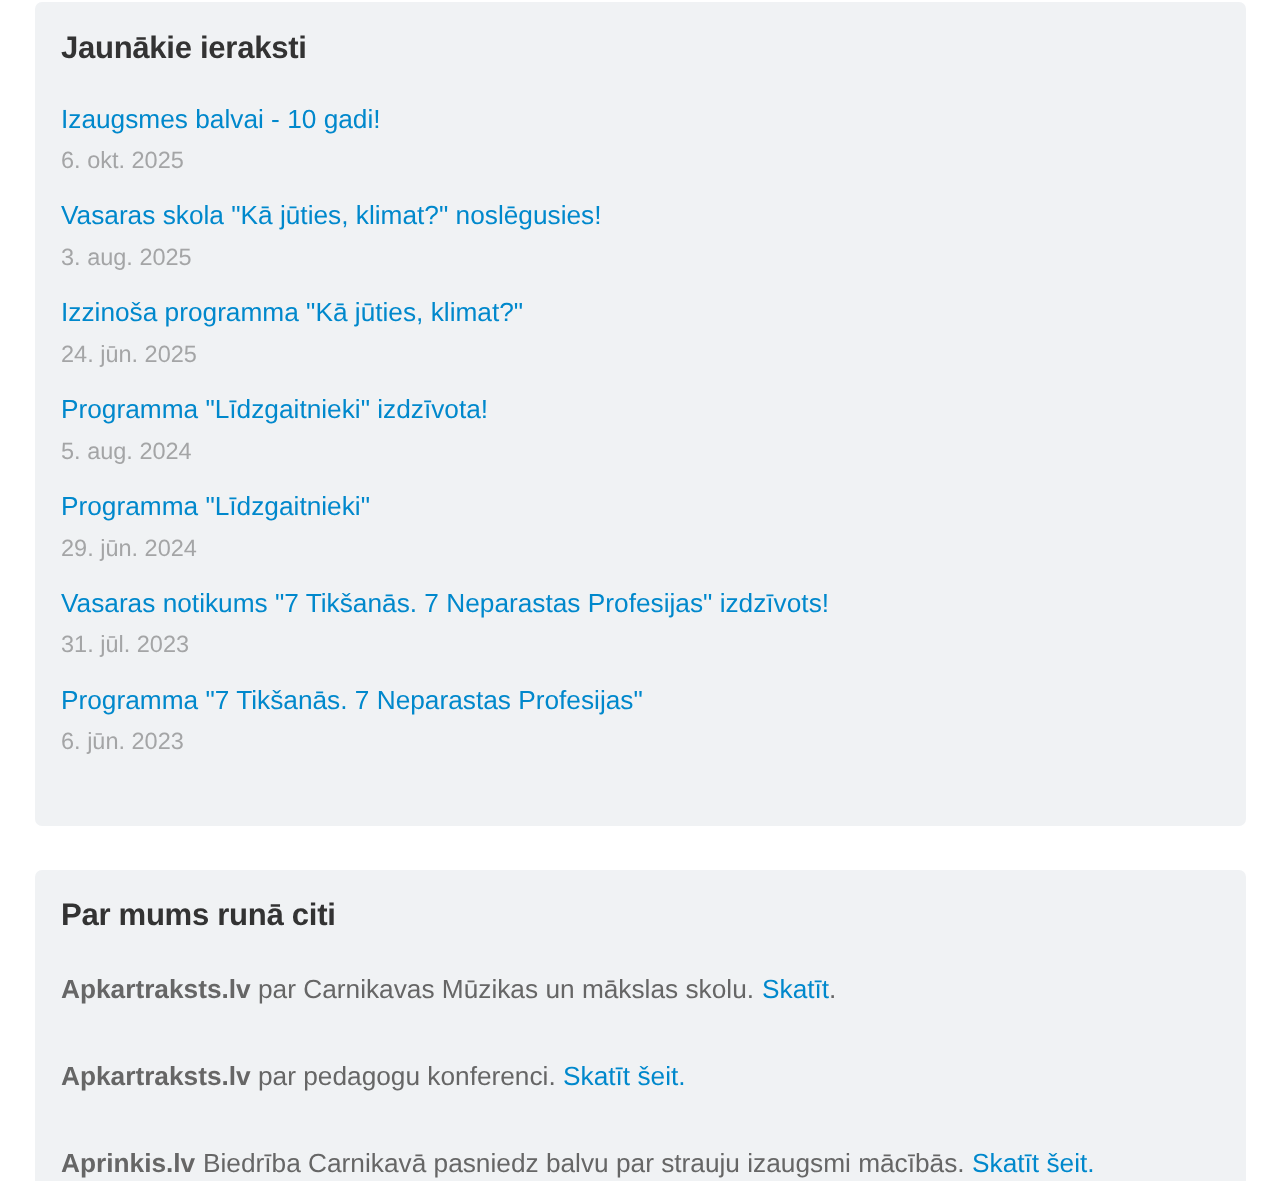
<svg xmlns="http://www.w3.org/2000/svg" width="1281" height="1181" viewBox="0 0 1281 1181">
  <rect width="100%" height="100%" fill="#fff"/>
  <rect x="35" y="2" width="1211" height="824" rx="7" fill="#f0f2f4"/>
  <rect x="35" y="870" width="1211" height="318" rx="7" fill="#f0f2f4"/>
  <text x="61" y="58" font-family="Liberation Sans" font-size="31.1" font-weight="bold" letter-spacing="-0.3" fill="#333">Jaunākie ieraksti</text>
  <text x="61" y="128" font-family="Liberation Sans" font-size="26.25" fill="#08c">Izaugsmes balvai - 10 gadi!</text>
  <text x="61" y="168" font-family="Liberation Sans" font-size="23.5" fill="#a4a5a6">6. okt. 2025</text>
  <text x="61" y="224" font-family="Liberation Sans" font-size="26.25" fill="#08c">Vasaras skola "Kā jūties, klimat?" noslēgusies!</text>
  <text x="61" y="265" font-family="Liberation Sans" font-size="23.5" fill="#a4a5a6">3. aug. 2025</text>
  <text x="61" y="321" font-family="Liberation Sans" font-size="26.25" fill="#08c">Izzinoša programma "Kā jūties, klimat?"</text>
  <text x="61" y="362" font-family="Liberation Sans" font-size="23.5" fill="#a4a5a6">24. jūn. 2025</text>
  <text x="61" y="418" font-family="Liberation Sans" font-size="26.25" fill="#08c">Programma "Līdzgaitnieki" izdzīvota!</text>
  <text x="61" y="459" font-family="Liberation Sans" font-size="23.5" fill="#a4a5a6">5. aug. 2024</text>
  <text x="61" y="515" font-family="Liberation Sans" font-size="26.25" fill="#08c">Programma "Līdzgaitnieki"</text>
  <text x="61" y="556" font-family="Liberation Sans" font-size="23.5" fill="#a4a5a6">29. jūn. 2024</text>
  <text x="61" y="612" font-family="Liberation Sans" font-size="26.25" fill="#08c">Vasaras notikums "7 Tikšanās. 7 Neparastas Profesijas" izdzīvots!</text>
  <text x="61" y="652" font-family="Liberation Sans" font-size="23.5" fill="#a4a5a6">31. jūl. 2023</text>
  <text x="61" y="709" font-family="Liberation Sans" font-size="26.25" fill="#08c">Programma "7 Tikšanās. 7 Neparastas Profesijas"</text>
  <text x="61" y="749" font-family="Liberation Sans" font-size="23.5" fill="#a4a5a6">6. jūn. 2023</text>
  <text x="61" y="925" font-family="Liberation Sans" font-size="31.1" font-weight="bold" letter-spacing="-0.3" fill="#333">Par mums runā citi</text>
  <text x="61" y="998" font-family="Liberation Sans" font-size="26.25" font-weight="bold" fill="#666">Apkartraksts.lv</text>
  <text x="258" y="998" font-family="Liberation Sans" font-size="26.25" fill="#666">par Carnikavas Mūzikas un mākslas skolu.</text>
  <text x="762" y="998" font-family="Liberation Sans" font-size="26.25" fill="#08c">Skatīt</text>
  <text x="829" y="998" font-family="Liberation Sans" font-size="26.25" fill="#666">.</text>
  <text x="61" y="1085" font-family="Liberation Sans" font-size="26.25" font-weight="bold" fill="#666">Apkartraksts.lv</text>
  <text x="258" y="1085" font-family="Liberation Sans" font-size="26.25" fill="#666">par pedagogu konferenci.</text>
  <text x="563" y="1085" font-family="Liberation Sans" font-size="26.25" fill="#08c">Skatīt šeit.</text>
  <text x="61" y="1172" font-family="Liberation Sans" font-size="26.25" font-weight="bold" fill="#666">Aprinkis.lv</text>
  <text x="203" y="1172" font-family="Liberation Sans" font-size="26.25" fill="#666">Biedrība Carnikavā pasniedz balvu par strauju izaugsmi mācībās.</text>
  <text x="972" y="1172" font-family="Liberation Sans" font-size="26.25" fill="#08c">Skatīt šeit.</text>
</svg>
